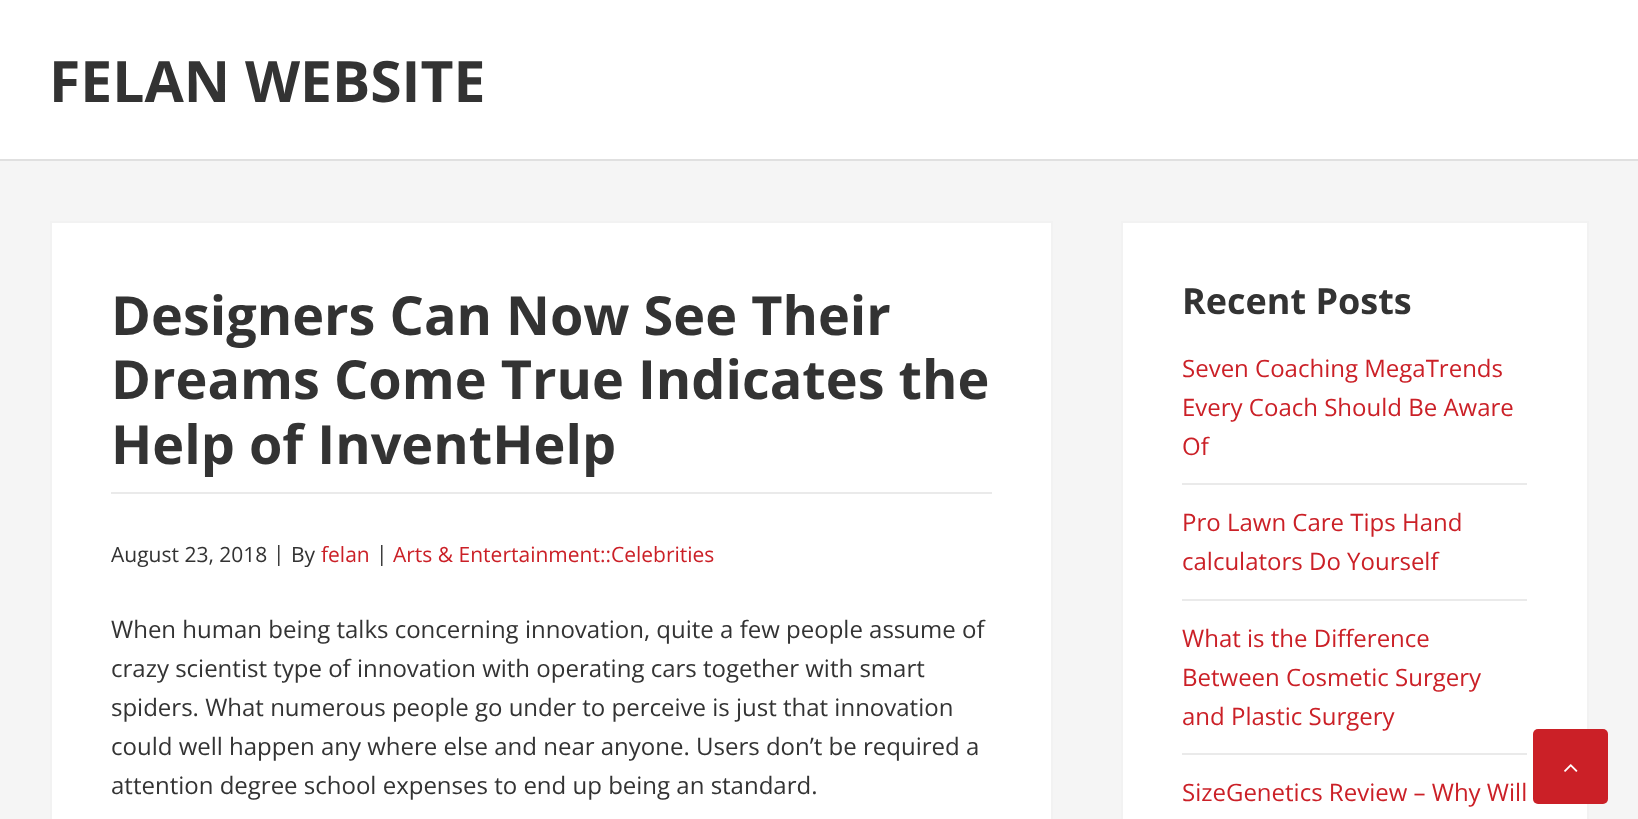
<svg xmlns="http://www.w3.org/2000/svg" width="1638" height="819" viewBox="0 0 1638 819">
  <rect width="100%" height="100%" fill="#f5f5f5"/>
  <path d="M0 0h1638v159H0z" fill="#fff"/>
  <path d="M0 159h1638v2H0z" fill="#e0e0e0"/>
  <path d="M51 222h1001v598H51z" fill="#fff" stroke="#f2f2f2" stroke-width="2"/>
  <path d="M111 492h881v2H111z" fill="#eaeaea"/>
  <path d="M1122 222h466v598H1122z" fill="#fff" stroke="#f2f2f2" stroke-width="2"/>
  <path d="M1182 483h345v2H1182z" fill="#eaeaea"/>
  <path d="M1182 599h345v2H1182z" fill="#eaeaea"/>
  <path d="M1182 753h345v2H1182z" fill="#eaeaea"/>
  <rect x="1533" y="729" width="75" height="75" rx="5" fill="#cb2027"/>
  <image x="1564" y="764" width="14" height="8" href="img/1.png"/>
  <text x="49" y="102" font-family="Open Sans" font-size="57" font-weight="bold" fill="#333">FELAN WEBSITE</text>
  <g font-family="Open Sans" font-size="54" font-weight="bold" fill="#333">
    <text x="111" y="335">Designers Can Now See Their</text>
    <text x="111" y="399">Dreams Come True Indicates the</text>
    <text x="111" y="464">Help of InventHelp</text>
  </g>
  <g font-family="Open Sans" font-size="21" fill="#333">
    <text x="111" y="562">August 23, 2018</text>
    <text x="273" y="561">|</text>
    <text x="291" y="562">By</text>
  </g>
  <text x="321" y="562" font-family="Open Sans" font-size="21" fill="#cb2027">felan</text>
  <text x="376" y="561" font-family="Open Sans" font-size="21" fill="#333">|</text>
  <text x="393" y="562" font-family="Open Sans" font-size="21" fill="#cb2027">Arts &amp; Entertainment::Celebrities</text>
  <g font-family="Open Sans" font-size="24" fill="#333">
    <text x="111" y="638">When human being talks concerning innovation, quite a few people assume of</text>
    <text x="111" y="677">crazy scientist type of innovation with operating cars together with smart</text>
    <text x="111" y="716">spiders. What numerous people go under to perceive is just that innovation</text>
    <text x="111" y="755">could well happen any where else and near anyone. Users don’t be required a</text>
    <text x="111" y="794">attention degree school expenses to end up being an standard.</text>
  </g>
  <text x="1182" y="314" font-family="Open Sans" font-size="36" font-weight="bold" fill="#333">Recent Posts</text>
  <g font-family="Open Sans" font-size="24" fill="#cb2027">
    <text x="1182" y="377">Seven Coaching MegaTrends</text>
    <text x="1182" y="416">Every Coach Should Be Aware</text>
    <text x="1182" y="455">Of</text>
    <text x="1182" y="531">Pro Lawn Care Tips Hand</text>
    <text x="1182" y="570">calculators Do Yourself</text>
    <text x="1182" y="647">What is the Difference</text>
    <text x="1182" y="686">Between Cosmetic Surgery</text>
    <text x="1182" y="725">and Plastic Surgery</text>
    <text x="1182" y="801">SizeGenetics Review – Why Will</text>
  </g>
</svg>
